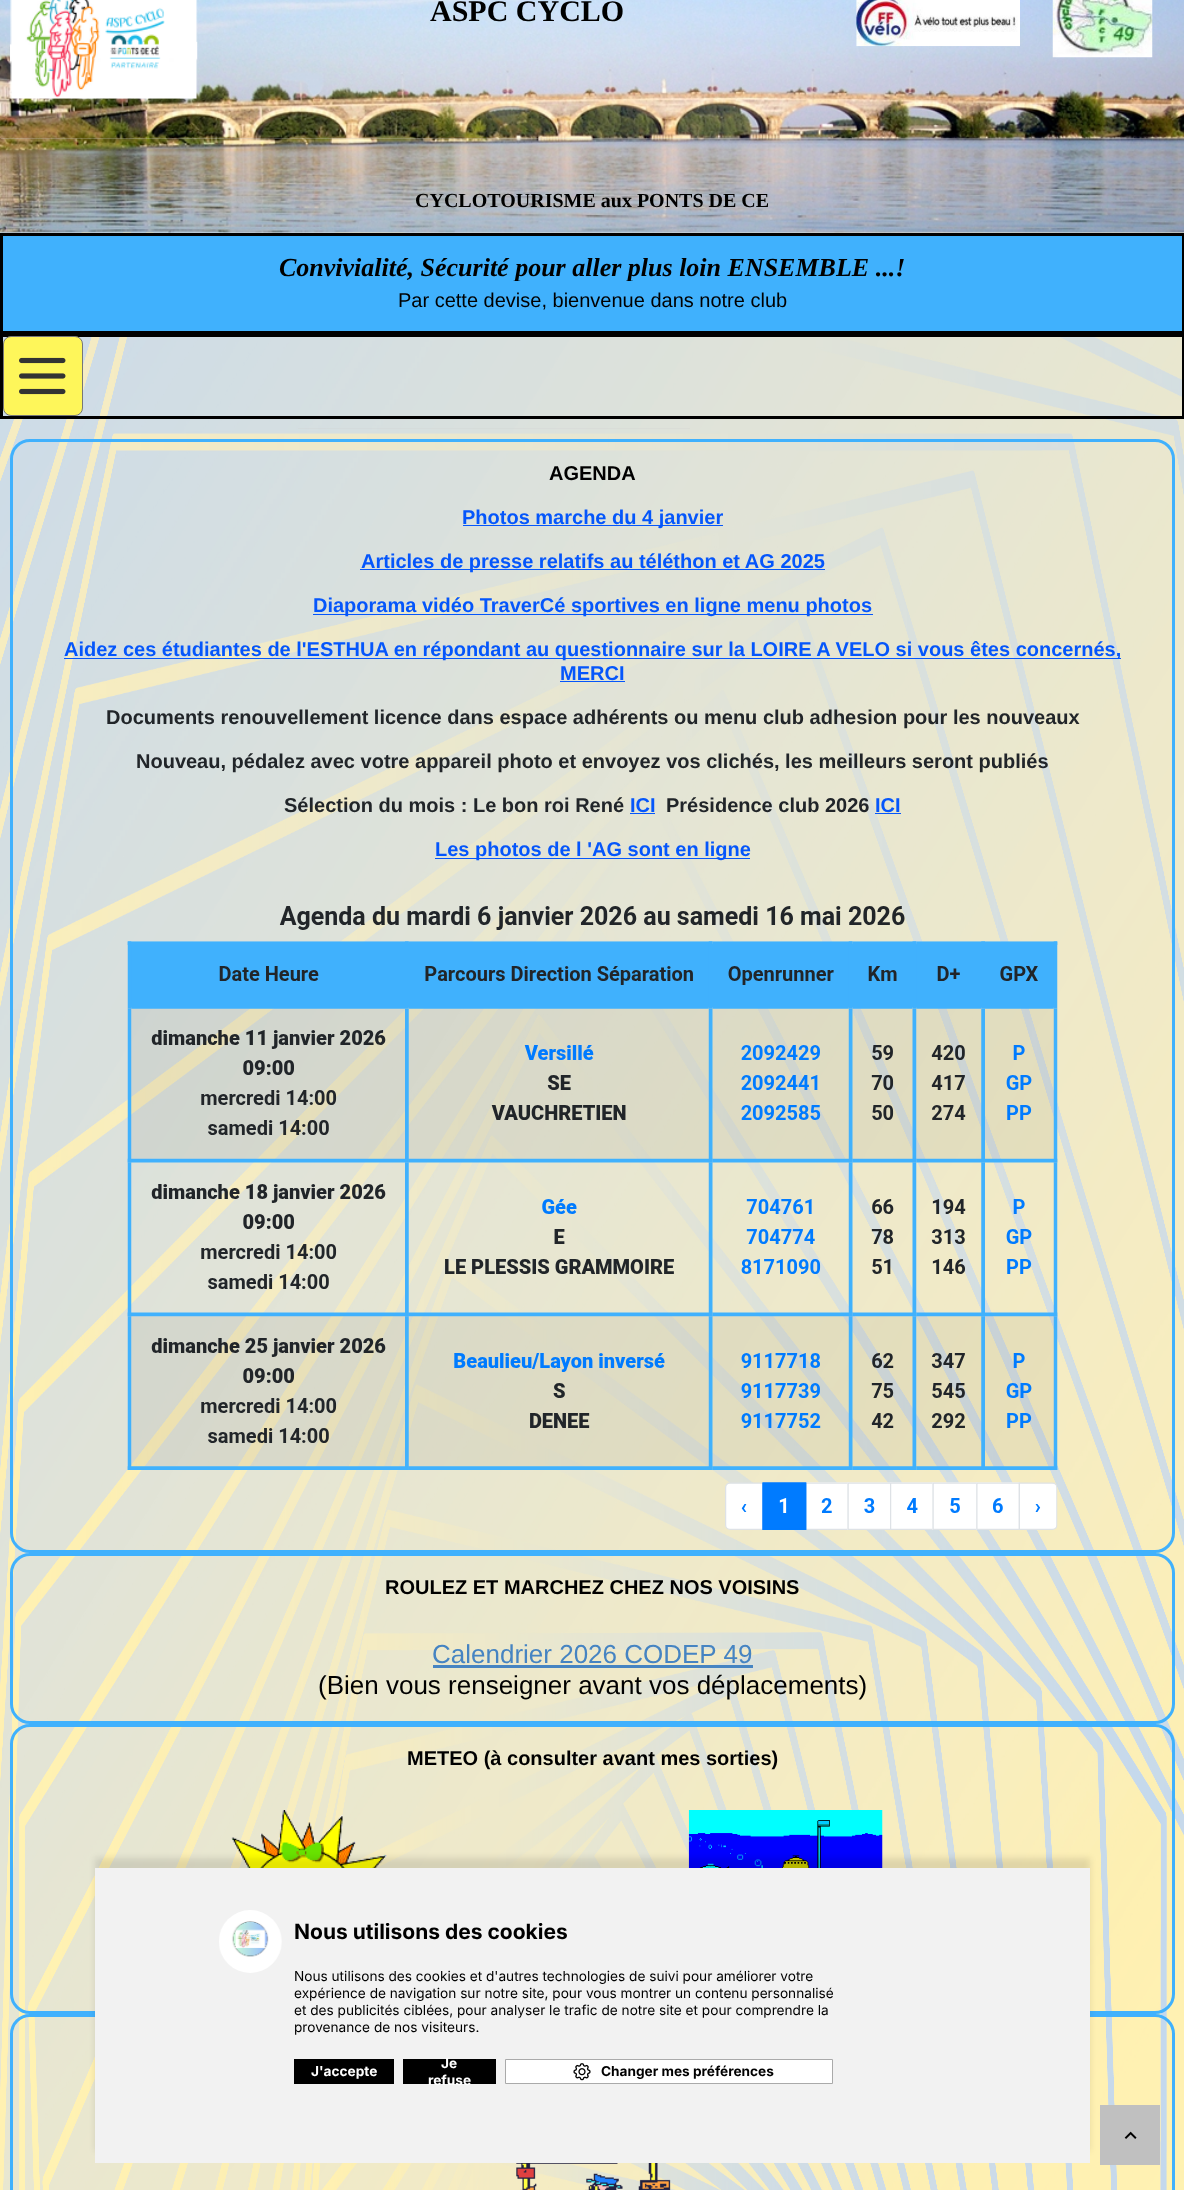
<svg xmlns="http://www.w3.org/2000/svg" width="1184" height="2190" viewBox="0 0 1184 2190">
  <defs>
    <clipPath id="clip1"><path d="M3 235h1180v46H3z"/></clipPath>
  </defs>
  <rect width="100%" height="100%" fill="#fff"/>
  <image x="0" y="232" width="1184" height="1958" href="img/11.png"/>
  <image x="0" y="0" width="1184" height="233" href="img/1.png"/>
  <image x="10" y="0" width="188" height="99" href="img/2.png"/>
  <image x="856" y="0" width="164" height="47" href="img/3.png"/>
  <image x="1052" y="0" width="101" height="58" href="img/4.png"/>
  <path d="M1 138h1183v1H1z" fill="#cececf40"/>
  <path d="M1.5 234.5h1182v98H1.5z" fill="#40b1fd" stroke="#000" stroke-width="3"/>
  <path d="M1.5 335.5h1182v82H1.5z" fill="none" stroke="#000" stroke-width="3"/>
  <rect x="3.5" y="336.5" width="79" height="79" rx="7.5" fill="#fef65a" stroke="#777"/>
  <image x="19" y="357" width="47" height="38" href="img/5.png"/>
  <path d="M298 428h392v1H298z" fill="#cececf40"/>
  <rect x="11.5" y="440.5" width="1162" height="1111" rx="18.5" fill="none" stroke="#40b1fd" stroke-width="3"/>
  <path d="M463 525h260v1H463z" fill="#0556fb"/>
  <path d="M360 569h465v1H360z" fill="#0556fb"/>
  <path d="M313 614h560v1H313z" fill="#0556fb"/>
  <path d="M64 658h1057v1H64z" fill="#0556fb"/>
  <path d="M560 681h65v1H560z" fill="#0556fb"/>
  <path d="M630 813h25v1H630z" fill="#0556fb"/>
  <path d="M875 813h26v1H875z" fill="#0556fb"/>
  <path d="M435 858h315v1H435z" fill="#0556fb"/>
  <image x="127" y="906" width="931" height="624" href="img/6.png"/>
  <rect x="11.5" y="1554.5" width="1162" height="168" rx="18.5" fill="none" stroke="#40b1fd" stroke-width="3"/>
  <path d="M433 1665h320v3H433z" fill="#4684c2"/>
  <rect x="11.5" y="1725.5" width="1162" height="287" rx="18.5" fill="none" stroke="#40b1fd" stroke-width="3"/>
  <image x="231" y="1810" width="156" height="58" href="img/7.png"/>
  <image x="688" y="1810" width="195" height="58" href="img/8.png"/>
  <rect x="11.5" y="2015.5" width="1162" height="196" rx="18.5" fill="none" stroke="#40b1fd" stroke-width="3"/>
  <image x="516" y="2163" width="155" height="27" href="img/9.png"/>
  <path d="M1100 2105h60v60H1100z" fill="#c0c0c0"/>
  <image x="1124" y="2131" width="13" height="8" href="img/10.png"/>
  <path d="M95 1858h995v293H95z" fill="#0000001a" filter="blur(3px)"/>
  <path d="M95 1868h995v295H95z" fill="#f2f2f2"/>
  <image x="219" y="1910" width="63" height="63" href="img/12.png"/>
  <path d="M294 2059h100v25H294z" fill="#000"/>
  <path d="M403 2059h93v25H403z" fill="#000"/>
  <path d="M505.5 2059.5h327v24H505.5z" fill="#fff" stroke="#aaa"/>
  <image x="573" y="2063" width="18" height="18" href="img/13.png"/>
  <text x="430" y="21" font-family="Liberation Serif" font-size="30" font-weight="bold" fill="#000">ASPC CYCLO</text>
  <text x="415" y="207" font-family="Liberation Serif" font-size="20" font-weight="bold" fill="#000">CYCLOTOURISME aux PONTS DE CE</text>
  <g clip-path="url(#clip1)">
    <text x="279" y="276" font-family="Liberation Serif" font-size="26" font-weight="bold" font-style="italic" fill="#000">Convivialité, Sécurité pour aller plus loin ENSEMBLE ...!</text>
  </g>
  <text x="398" y="307" font-family="Liberation Sans" font-size="20" fill="#000">Par cette devise, bienvenue dans notre club</text>
  <text x="549" y="480" font-family="Liberation Sans" font-size="20" font-weight="bold" fill="#000">AGENDA</text>
  <g font-family="Liberation Sans" font-size="20" font-weight="bold" fill="#0556fb">
    <text x="462" y="524">Photos marche du 4 janvier</text>
    <text x="361" y="568">Articles de presse relatifs au téléthon et AG 2025</text>
    <text x="313" y="612">Diaporama vidéo TraverCé sportives en ligne menu photos</text>
    <text x="64" y="656">Aidez ces étudiantes de l'ESTHUA en répondant au questionnaire sur la LOIRE A VELO si vous êtes concernés,</text>
    <text x="560" y="680">MERCI</text>
  </g>
  <g font-family="Liberation Sans" font-size="20" font-weight="bold" fill="#212529">
    <text x="106" y="724">Documents renouvellement licence dans espace adhérents ou menu club adhesion pour les nouveaux</text>
    <text x="136" y="768">Nouveau, pédalez avec votre appareil photo et envoyez vos clichés, les meilleurs seront publiés</text>
    <text x="284" y="812">Sélection du mois : Le bon roi René</text>
  </g>
  <text x="630" y="812" font-family="Liberation Sans" font-size="20" font-weight="bold" fill="#0556fb">ICI</text>
  <text x="666" y="812" font-family="Liberation Sans" font-size="20" font-weight="bold" fill="#212529">Présidence club 2026</text>
  <g font-family="Liberation Sans" font-size="20" font-weight="bold" fill="#0556fb">
    <text x="875" y="812">ICI</text>
    <text x="435" y="856">Les photos de l 'AG sont en ligne</text>
  </g>
  <text x="385" y="1594" font-family="Liberation Sans" font-size="20" font-weight="bold" fill="#000">ROULEZ ET MARCHEZ CHEZ NOS VOISINS</text>
  <text x="432" y="1663" font-family="Liberation Sans" font-size="26" fill="#4684c2">Calendrier 2026 CODEP 49</text>
  <text x="318" y="1694" font-family="Liberation Sans" font-size="26" fill="#000">(Bien vous renseigner avant vos déplacements)</text>
  <text x="407" y="1765" font-family="Liberation Sans" font-size="20" font-weight="bold" fill="#000">METEO (à consulter avant mes sorties)</text>
  <text x="294" y="1939" font-family="Inter" font-size="21" font-weight="bold" fill="#000">Nous utilisons des cookies</text>
  <g font-family="Inter" font-size="13.65" fill="#000">
    <text x="294" y="1981">Nous utilisons des cookies et d'autres technologies de suivi pour améliorer votre</text>
    <text x="294" y="1998">expérience de navigation sur notre site, pour vous montrer un contenu personnalisé</text>
    <text x="294" y="2015">et des publicités ciblées, pour analyser le trafic de notre site et pour comprendre la</text>
    <text x="294" y="2032">provenance de nos visiteurs.</text>
  </g>
  <g font-family="Inter" font-size="13.65" font-weight="bold" fill="#fff">
    <text x="311" y="2076">J'accepte</text>
    <text x="441" y="2068">Je</text>
    <text x="428" y="2085">refuse</text>
  </g>
  <text x="601" y="2076" font-family="Inter" font-size="13.65" font-weight="bold" fill="#000">Changer mes préférences</text>
</svg>
